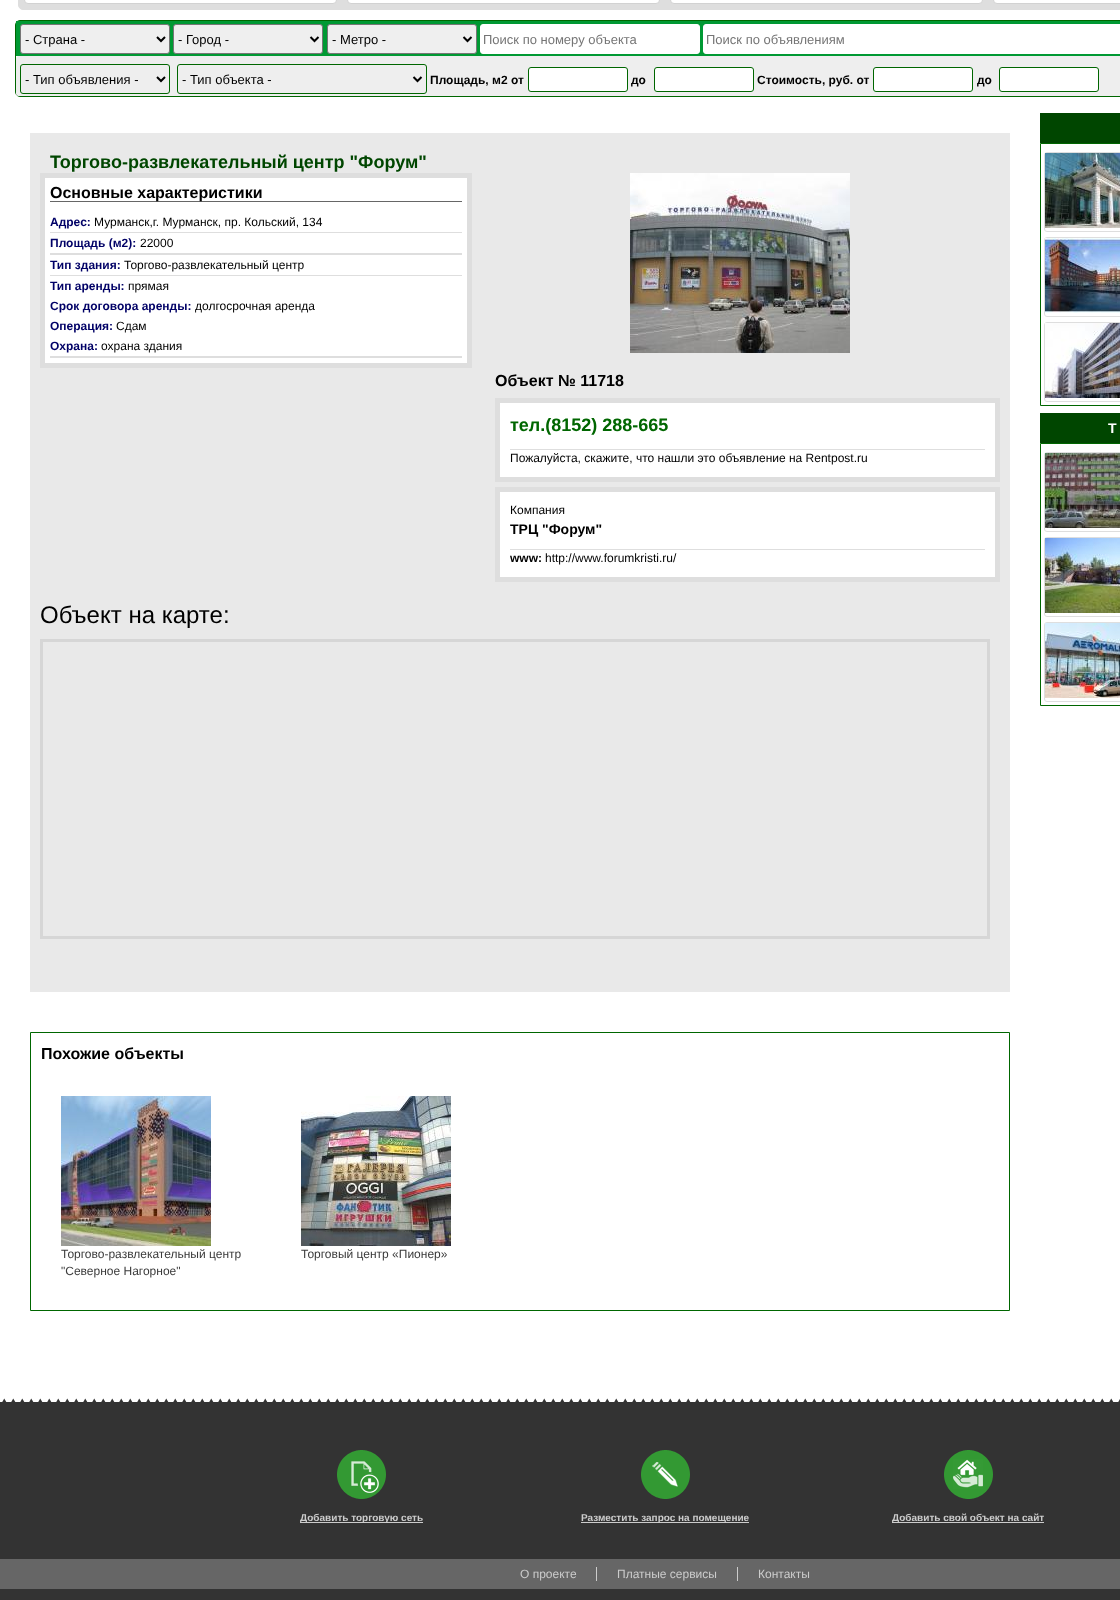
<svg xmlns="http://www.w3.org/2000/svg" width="1120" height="1600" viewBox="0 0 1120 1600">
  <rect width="100%" height="100%" fill="#fff"/>
  <rect x="18.5" y="-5.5" width="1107" height="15" rx="4.5" fill="#dedede" stroke="#dedede"/>
  <rect x="24.5" y="-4.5" width="312" height="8" rx="3.5" fill="#fff" stroke="#d2d2d2"/>
  <rect x="347.5" y="-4.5" width="312" height="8" rx="3.5" fill="#fff" stroke="#d2d2d2"/>
  <rect x="670.5" y="-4.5" width="312" height="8" rx="3.5" fill="#fff" stroke="#d2d2d2"/>
  <rect x="993.5" y="-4.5" width="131" height="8" rx="3.5" fill="#fff" stroke="#d2d2d2"/>
  <rect x="15.5" y="20.5" width="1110" height="76" rx="4.5" fill="none" stroke="#060"/>
  <path d="M16 21h1104v35H16z" fill="#093"/>
  <rect x="20.5" y="24.5" width="149" height="29" rx="2.5" fill="#efefef" stroke="#767676"/>
  <path d="M157 37L161 41L165 37" fill="none" stroke="#000" stroke-width="2"/>
  <rect x="173.5" y="24.5" width="149" height="29" rx="2.5" fill="#efefef" stroke="#767676"/>
  <path d="M310.5 37L314.5 41L318.5 37" fill="none" stroke="#000" stroke-width="2"/>
  <rect x="327.5" y="24.5" width="149" height="29" rx="2.5" fill="#efefef" stroke="#767676"/>
  <path d="M463.5 37L467.5 41L471.5 37" fill="none" stroke="#000" stroke-width="2"/>
  <rect x="480.5" y="24.5" width="219" height="29" rx="2.5" fill="#fff" stroke="#fff"/>
  <rect x="703.5" y="24.5" width="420" height="29" rx="2.5" fill="#fff" stroke="#fff"/>
  <rect x="16" y="56" width="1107" height="40" rx="3" fill="#eee"/>
  <rect x="20.5" y="64.5" width="149" height="29" rx="2.5" fill="none" stroke="#060"/>
  <path d="M157 77L161 81L165 77" fill="none" stroke="#000" stroke-width="2"/>
  <rect x="177.5" y="64.5" width="249" height="29" rx="2.5" fill="none" stroke="#060"/>
  <path d="M413.5 77L417.5 81L421.5 77" fill="none" stroke="#000" stroke-width="2"/>
  <rect x="528.5" y="67.5" width="99" height="24" rx="2.5" fill="#fff" stroke="#060"/>
  <rect x="654.5" y="67.5" width="99" height="24" rx="2.5" fill="#fff" stroke="#060"/>
  <rect x="873.5" y="67.5" width="99" height="24" rx="2.5" fill="#fff" stroke="#060"/>
  <rect x="999.5" y="67.5" width="99" height="24" rx="2.5" fill="#fff" stroke="#060"/>
  <path d="M30 133h980v859H30z" fill="#e9e9e9"/>
  <path d="M40 173h432v195H40z" fill="#dedede"/>
  <path d="M45 178h422v185H45z" fill="#fff"/>
  <path d="M50 201h412v1H50z" fill="#666"/>
  <path d="M50 232h412v1H50z" fill="#dedede"/>
  <path d="M50 253h412v2H50z" fill="#dedede"/>
  <path d="M50 275h412v1H50z" fill="#dedede"/>
  <path d="M50 356h412v2H50z" fill="#dedede"/>
  <image x="630" y="173" width="220" height="180" href="img/1.png"/>
  <path d="M495 398h505v84H495z" fill="#dedede"/>
  <path d="M500 403h495v74H500z" fill="#fff"/>
  <path d="M510 449h475v1H510z" fill="#dedede"/>
  <path d="M495 487h505v95H495z" fill="#dedede"/>
  <path d="M500 492h495v85H500z" fill="#fff"/>
  <path d="M510 549h475v1H510z" fill="#dedede"/>
  <path d="M41.5 640.5h947v297H41.5z" fill="none" stroke="#d6d6d6" stroke-width="3"/>
  <path d="M30.5 1032.5h979v278H30.5z" fill="none" stroke="#060"/>
  <image x="61" y="1096" width="150" height="150" href="img/2.png"/>
  <image x="301" y="1096" width="150" height="150" href="img/3.png"/>
  <path d="M1040 113h80v30H1040z" fill="#004600"/>
  <path d="M1040.5 143.5h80v262H1040.5z" fill="none" stroke="#060"/>
  <rect x="1044.5" y="152.5" width="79" height="79" rx="2.5" fill="none" stroke="#dedede"/>
  <image x="1045" y="153" width="75" height="75" href="img/4.png"/>
  <rect x="1044.5" y="237.5" width="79" height="79" rx="2.5" fill="none" stroke="#dedede"/>
  <image x="1045" y="238" width="75" height="75" href="img/5.png"/>
  <rect x="1044.5" y="322.5" width="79" height="79" rx="2.5" fill="none" stroke="#dedede"/>
  <image x="1045" y="323" width="75" height="75" href="img/6.png"/>
  <path d="M1040 413h80v30H1040z" fill="#004600"/>
  <path d="M1040.5 443.5h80v262H1040.5z" fill="none" stroke="#060"/>
  <rect x="1044.5" y="452.5" width="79" height="79" rx="2.5" fill="none" stroke="#dedede"/>
  <image x="1045" y="453" width="75" height="75" href="img/7.png"/>
  <rect x="1044.5" y="537.5" width="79" height="79" rx="2.5" fill="none" stroke="#dedede"/>
  <image x="1045" y="538" width="75" height="75" href="img/8.png"/>
  <rect x="1044.5" y="622.5" width="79" height="79" rx="2.5" fill="none" stroke="#dedede"/>
  <image x="1045" y="623" width="75" height="75" href="img/9.png"/>
  <image x="0" y="1398" width="1120" height="5" href="img/10.png"/>
  <path d="M0 1403h1120v156H0z" fill="#333"/>
  <image x="337" y="1450" width="49" height="49" href="img/11.png"/>
  <path d="M300 1522h123v1H300z" fill="#ccc"/>
  <image x="641" y="1450" width="49" height="49" href="img/12.png"/>
  <path d="M581 1522h168v1H581z" fill="#ccc"/>
  <image x="944" y="1450" width="49" height="49" href="img/13.png"/>
  <path d="M892 1522h152v1H892z" fill="#ccc"/>
  <path d="M0 1559h1120v30H0z" fill="#666"/>
  <path d="M596 1567h1v14H596z" fill="#ccc"/>
  <path d="M737 1567h1v14H737z" fill="#ccc"/>
  <path d="M0 1589h1120v11H0z" fill="#333"/>
  <g font-family="Liberation Sans" font-size="13" fill="#000">
    <text x="25" y="44">- Страна -</text>
    <text x="178" y="44">- Город -</text>
    <text x="332" y="44">- Метро -</text>
  </g>
  <g font-family="Liberation Sans" font-size="13" fill="#757575">
    <text x="483" y="44">Поиск по номеру объекта</text>
    <text x="706" y="44">Поиск по объявлениям</text>
  </g>
  <g font-family="Liberation Sans" font-size="13" fill="#000">
    <text x="25" y="84">- Тип объявления -</text>
    <text x="182" y="84">- Тип объекта -</text>
  </g>
  <g font-family="Liberation Sans" font-size="12" font-weight="bold" fill="#000">
    <text x="430" y="84">Площадь, м2 от</text>
    <text x="631" y="84">до</text>
    <text x="757" y="84">Стоимость, руб. от</text>
    <text x="977" y="84">до</text>
  </g>
  <text x="50" y="168" font-family="Liberation Sans" font-size="18" font-weight="bold" fill="#004600">Торгово-развлекательный центр "Форум"</text>
  <text x="50" y="198" font-family="Liberation Sans" font-size="16" font-weight="bold" fill="#000">Основные характеристики</text>
  <text x="50" y="226" font-family="Liberation Sans" font-size="12" font-weight="bold" fill="#006">Адрес:</text>
  <text x="94" y="226" font-family="Liberation Sans" font-size="12" fill="#000">Мурманск,г. Мурманск, пр. Кольский, 134</text>
  <text x="50" y="247" font-family="Liberation Sans" font-size="12" font-weight="bold" fill="#006">Площадь (м2):</text>
  <text x="140" y="247" font-family="Liberation Sans" font-size="12" fill="#000">22000</text>
  <text x="50" y="269" font-family="Liberation Sans" font-size="12" font-weight="bold" fill="#006">Тип здания:</text>
  <text x="124" y="269" font-family="Liberation Sans" font-size="12" fill="#000">Торгово-развлекательный центр</text>
  <text x="50" y="290" font-family="Liberation Sans" font-size="12" font-weight="bold" fill="#006">Тип аренды:</text>
  <text x="128" y="290" font-family="Liberation Sans" font-size="12" fill="#000">прямая</text>
  <text x="50" y="310" font-family="Liberation Sans" font-size="12" font-weight="bold" fill="#006">Срок договора аренды:</text>
  <text x="195" y="310" font-family="Liberation Sans" font-size="12" fill="#000">долгосрочная аренда</text>
  <text x="50" y="330" font-family="Liberation Sans" font-size="12" font-weight="bold" fill="#006">Операция:</text>
  <text x="116" y="330" font-family="Liberation Sans" font-size="12" fill="#000">Сдам</text>
  <text x="50" y="350" font-family="Liberation Sans" font-size="12" font-weight="bold" fill="#006">Охрана:</text>
  <text x="101" y="350" font-family="Liberation Sans" font-size="12" fill="#000">охрана здания</text>
  <text x="495" y="386" font-family="Liberation Sans" font-size="16" font-weight="bold" fill="#000">Объект № 11718</text>
  <text x="510" y="431" font-family="Liberation Sans" font-size="18" font-weight="bold" fill="#060">тел.(8152) 288-665</text>
  <g font-family="Liberation Sans" font-size="12" fill="#000">
    <text x="510" y="462">Пожалуйста, скажите, что нашли это объявление на Rentpost.ru</text>
    <text x="510" y="514">Компания</text>
  </g>
  <text x="510" y="534" font-family="Liberation Sans" font-size="14" font-weight="bold" fill="#000">ТРЦ "Форум"</text>
  <text x="510" y="562" font-family="Liberation Sans" font-size="12" font-weight="bold" fill="#000">www:</text>
  <text x="545" y="562" font-family="Liberation Sans" font-size="12" fill="#000">http://www.forumkristi.ru/</text>
  <text x="40" y="623" font-family="Liberation Sans" font-size="24" fill="#000">Объект на карте:</text>
  <text x="41" y="1059" font-family="Liberation Sans" font-size="16" font-weight="bold" fill="#000">Похожие объекты</text>
  <g font-family="Liberation Sans" font-size="12" fill="#3b3b3b">
    <text x="61" y="1258">Торгово-развлекательный центр</text>
    <text x="61" y="1275">"Северное Нагорное"</text>
    <text x="301" y="1258">Торговый центр «Пионер»</text>
  </g>
  <text x="1108" y="433" font-family="Liberation Sans" font-size="14" font-weight="bold" fill="#fff">Т</text>
  <g font-family="Liberation Sans" font-size="10" font-weight="bold" fill="#ccc">
    <text x="300" y="1521">Добавить торговую сеть</text>
    <text x="581" y="1521">Разместить запрос на помещение</text>
    <text x="892" y="1521">Добавить свой объект на сайт</text>
  </g>
  <g font-family="Liberation Sans" font-size="12" fill="#ccc">
    <text x="520" y="1578">О проекте</text>
    <text x="617" y="1578">Платные сервисы</text>
    <text x="758" y="1578">Контакты</text>
  </g>
</svg>
